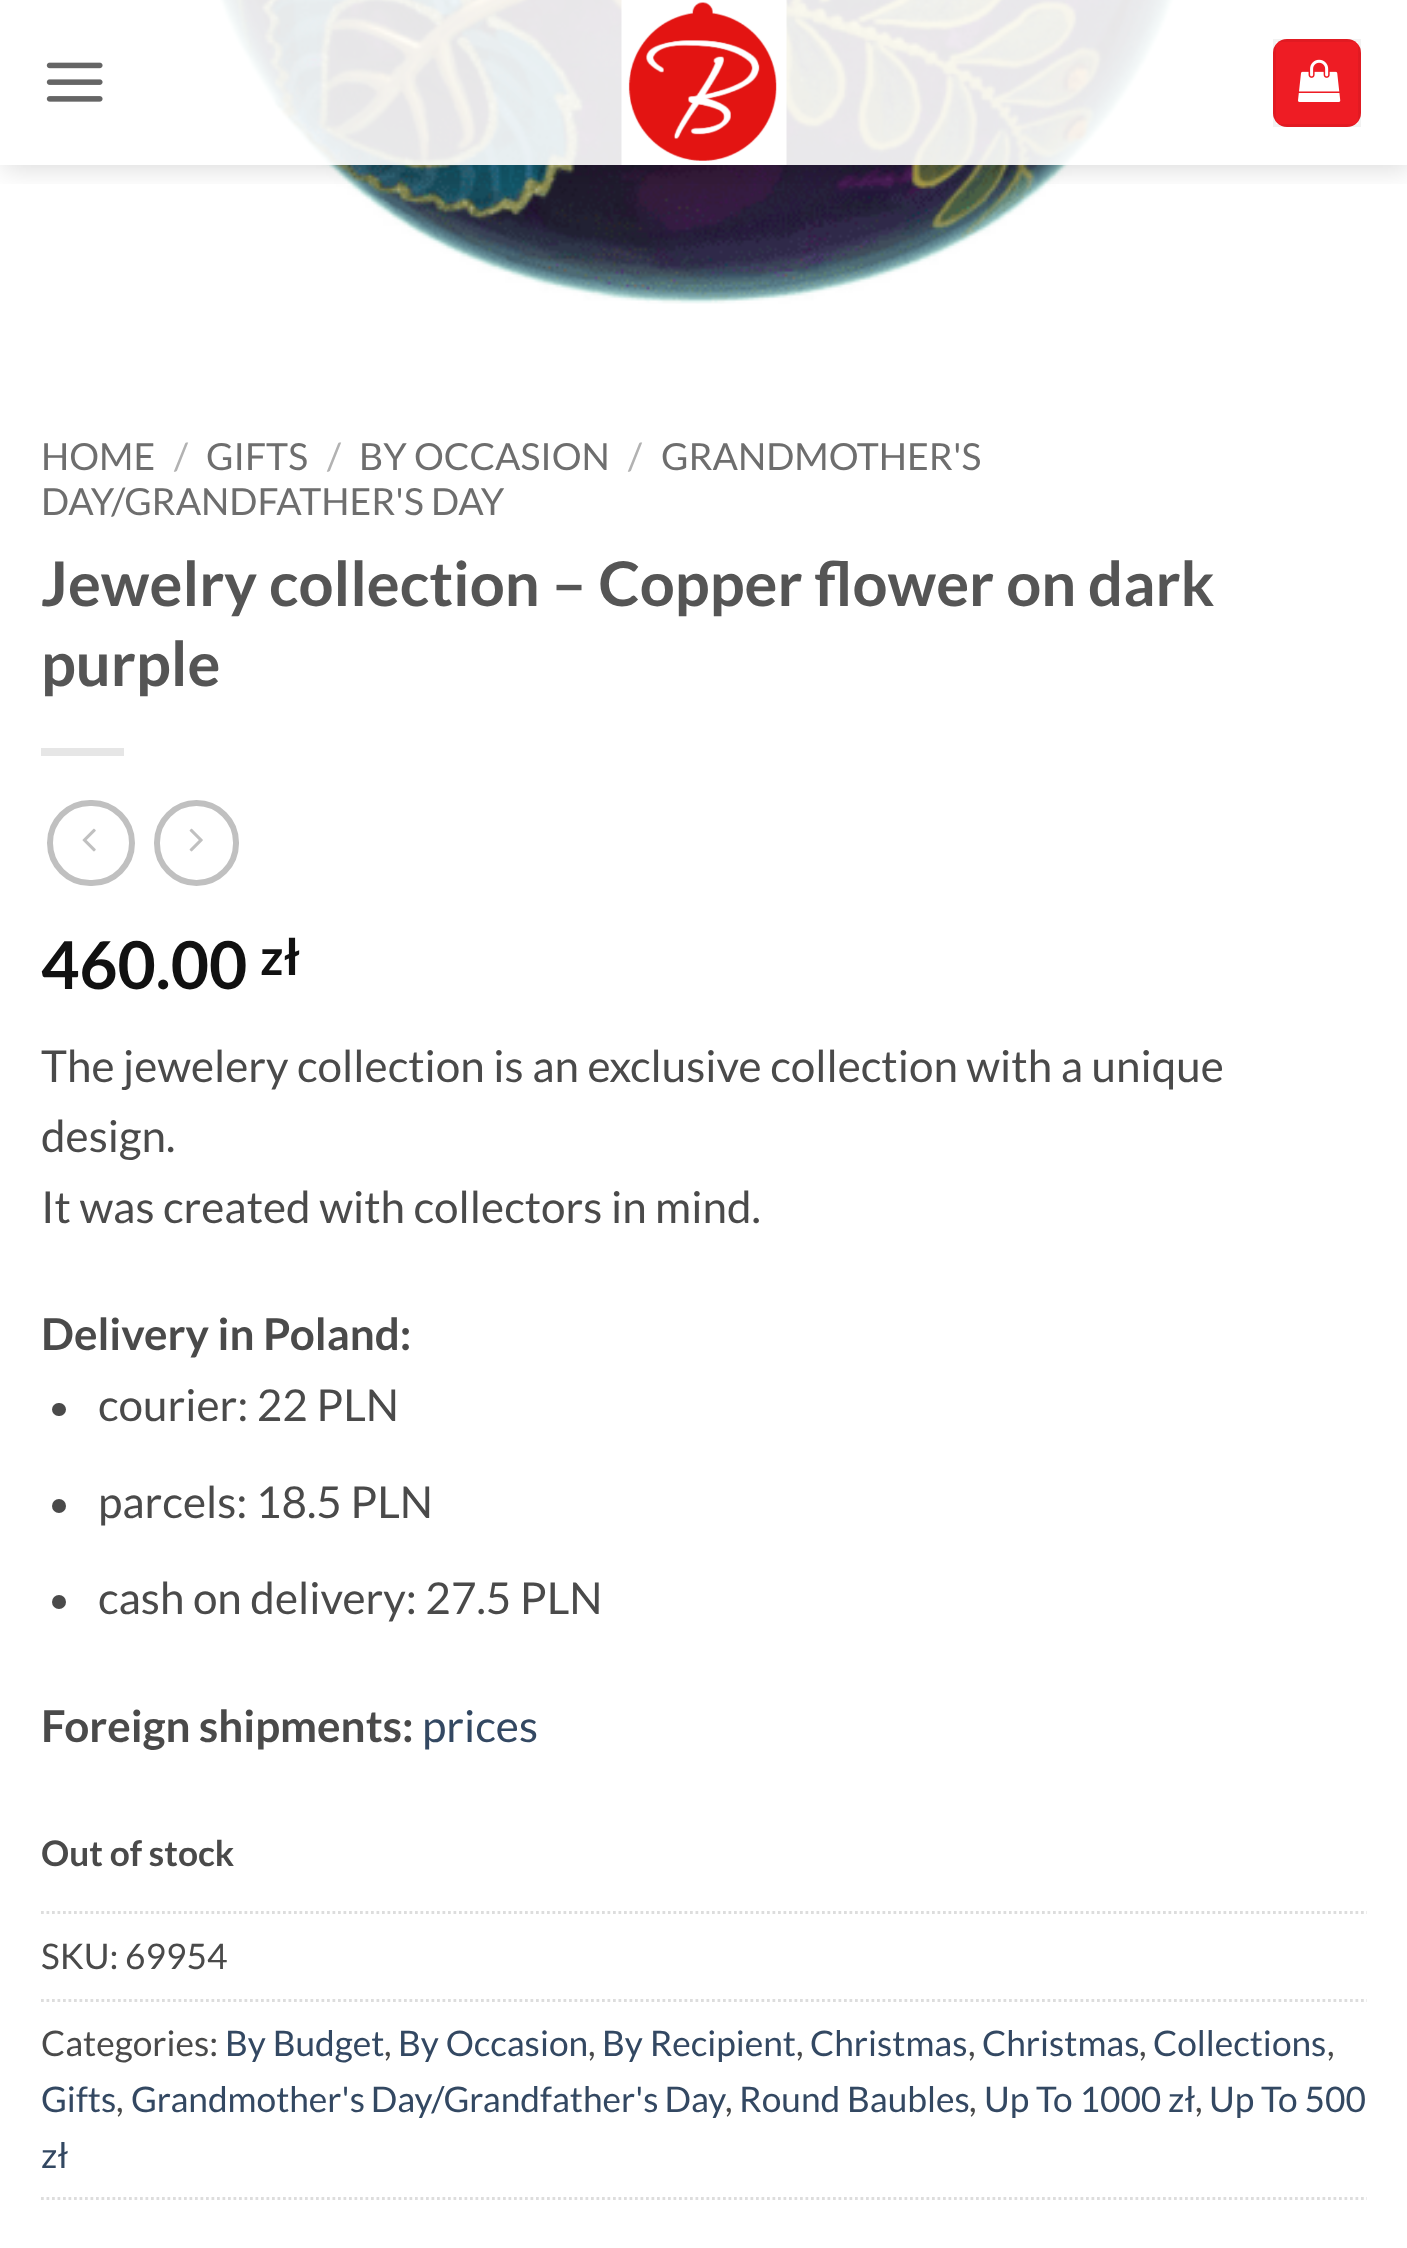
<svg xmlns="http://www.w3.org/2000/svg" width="1407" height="2248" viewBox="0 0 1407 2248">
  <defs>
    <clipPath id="clip1"><path d="M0 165h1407v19H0z"/></clipPath>
  </defs>
  <rect width="100%" height="100%" fill="#fff"/>
  <image x="219" y="0" width="956" height="304" href="img/4.png"/>
  <g clip-path="url(#clip1)">
    <path d="M3 3h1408v165H3z" fill="#00000026" filter="blur(14px)"/>
  </g>
  <image x="46" y="62" width="57" height="40" href="img/1.png"/>
  <path d="M219 0h956v165H219z" fill="#ffffffe6"/>
  <image x="621" y="0" width="166" height="165" href="img/2.png"/>
  <rect x="1273" y="39" width="88" height="88" rx="14" fill="#ee1c24"/>
  <path d="M1274.5 40.5h85v85H1274.5z" fill="none" stroke="#0000000d" stroke-width="3"/>
  <image x="1298" y="59" width="43" height="43" href="img/3.png"/>
  <path d="M41 748h83v8H41z" fill="#e6e6e6"/>
  <rect x="50" y="803" width="82" height="80" rx="40" fill="none" stroke="#c0c0c0" stroke-width="6"/>
  <image x="82" y="828" width="14" height="24" href="img/5.png"/>
  <rect x="157" y="803" width="79" height="80" rx="39.5" fill="none" stroke="#c0c0c0" stroke-width="6"/>
  <image x="189" y="828" width="14" height="24" href="img/6.png"/>
  <rect x="52" y="1403" width="14" height="13" rx="6.5" fill="#4a4a4a"/>
  <circle cx="59" cy="1506" r="7" fill="#4a4a4a"/>
  <circle cx="59" cy="1602" r="7" fill="#4a4a4a"/>
  <path d="M41 1912.5H1367" fill="none" stroke="#ddd" stroke-width="2.8" stroke-dasharray="2.75 2.75"/>
  <path d="M41 2000.5H1367" fill="none" stroke="#ddd" stroke-width="2.8" stroke-dasharray="2.75 2.75"/>
  <path d="M41 2198.5H1367" fill="none" stroke="#ddd" stroke-width="2.8" stroke-dasharray="2.75 2.75"/>
  <text x="41" y="470" font-family="Lato" font-size="37.4" fill="#6e6e6e">HOME</text>
  <text x="174" y="470" font-family="Lato" font-size="37.4" fill="#b2b2b2">/</text>
  <text x="206" y="470" font-family="Lato" font-size="37.4" fill="#6e6e6e">GIFTS</text>
  <text x="327" y="470" font-family="Lato" font-size="37.4" fill="#b2b2b2">/</text>
  <text x="359" y="470" font-family="Lato" font-size="37.4" fill="#6e6e6e">BY OCCASION</text>
  <text x="628" y="470" font-family="Lato" font-size="37.4" fill="#b2b2b2">/</text>
  <g font-family="Lato" font-size="37.4" fill="#6e6e6e">
    <text x="661" y="470">GRANDMOTHER'S</text>
    <text x="41" y="515">DAY/GRANDFATHER'S DAY</text>
  </g>
  <g font-family="Lato" font-size="61.6" font-weight="bold" fill="#555">
    <text x="41" y="606">Jewelry collection – Copper flower on dark</text>
    <text x="41" y="686">purple</text>
  </g>
  <text x="41" y="989" font-family="Lato" font-size="66" font-weight="bold" fill="#111">460.00</text>
  <text x="260" y="975" font-family="Lato" font-size="50" font-weight="bold" fill="#111">zł</text>
  <g font-family="Lato" font-size="44" fill="#4a4a4a">
    <text x="41" y="1082">The jewelery collection is an exclusive collection with a unique</text>
    <text x="41" y="1152">design.</text>
    <text x="41" y="1223">It was created with collectors in mind.</text>
  </g>
  <text x="41" y="1350" font-family="Lato" font-size="44" font-weight="bold" fill="#4a4a4a">Delivery in Poland:</text>
  <g font-family="Lato" font-size="44" fill="#4a4a4a">
    <text x="98" y="1421">courier: 22 PLN</text>
    <text x="98" y="1518">parcels: 18.5 PLN</text>
    <text x="98" y="1614">cash on delivery: 27.5 PLN</text>
  </g>
  <text x="41" y="1742" font-family="Lato" font-size="44" font-weight="bold" fill="#4a4a4a">Foreign shipments:</text>
  <text x="422" y="1742" font-family="Lato" font-size="44" fill="#334862">prices</text>
  <text x="41" y="1866" font-family="Lato" font-size="35.25" font-weight="bold" fill="#4a4a4a">Out of stock</text>
  <g font-family="Lato" font-size="35.25" fill="#4a4a4a">
    <text x="41" y="1969">SKU: 69954</text>
    <text x="41" y="2056">Categories:</text>
  </g>
  <text x="225" y="2056" font-family="Lato" font-size="35.25" fill="#334862">By Budget</text>
  <text x="384" y="2056" font-family="Lato" font-size="35.25" fill="#4a4a4a">,</text>
  <text x="398" y="2056" font-family="Lato" font-size="35.25" fill="#334862">By Occasion</text>
  <text x="588" y="2056" font-family="Lato" font-size="35.25" fill="#4a4a4a">,</text>
  <text x="602" y="2056" font-family="Lato" font-size="35.25" fill="#334862">By Recipient</text>
  <text x="796" y="2056" font-family="Lato" font-size="35.25" fill="#4a4a4a">,</text>
  <text x="810" y="2056" font-family="Lato" font-size="35.25" fill="#334862">Christmas</text>
  <text x="968" y="2056" font-family="Lato" font-size="35.25" fill="#4a4a4a">,</text>
  <text x="982" y="2056" font-family="Lato" font-size="35.25" fill="#334862">Christmas</text>
  <text x="1139" y="2056" font-family="Lato" font-size="35.25" fill="#4a4a4a">,</text>
  <text x="1153" y="2056" font-family="Lato" font-size="35.25" fill="#334862">Collections</text>
  <text x="1327" y="2056" font-family="Lato" font-size="35.25" fill="#4a4a4a">,</text>
  <text x="41" y="2112" font-family="Lato" font-size="35.25" fill="#334862">Gifts</text>
  <text x="116" y="2112" font-family="Lato" font-size="35.25" fill="#4a4a4a">,</text>
  <text x="131" y="2112" word-spacing="-1" font-family="Lato" font-size="35.25" fill="#334862">Grandmother's Day/Grandfather's Day</text>
  <text x="725" y="2112" font-family="Lato" font-size="35.25" fill="#4a4a4a">,</text>
  <text x="739" y="2112" font-family="Lato" font-size="35.25" fill="#334862">Round Baubles</text>
  <text x="969" y="2112" font-family="Lato" font-size="35.25" fill="#4a4a4a">,</text>
  <text x="984" y="2112" font-family="Lato" font-size="35.25" fill="#334862">Up To 1000 zł</text>
  <text x="1195" y="2112" font-family="Lato" font-size="35.25" fill="#4a4a4a">,</text>
  <g font-family="Lato" font-size="35.25" fill="#334862">
    <text x="1209" y="2112">Up To 500</text>
    <text x="41" y="2168">zł</text>
  </g>
</svg>
